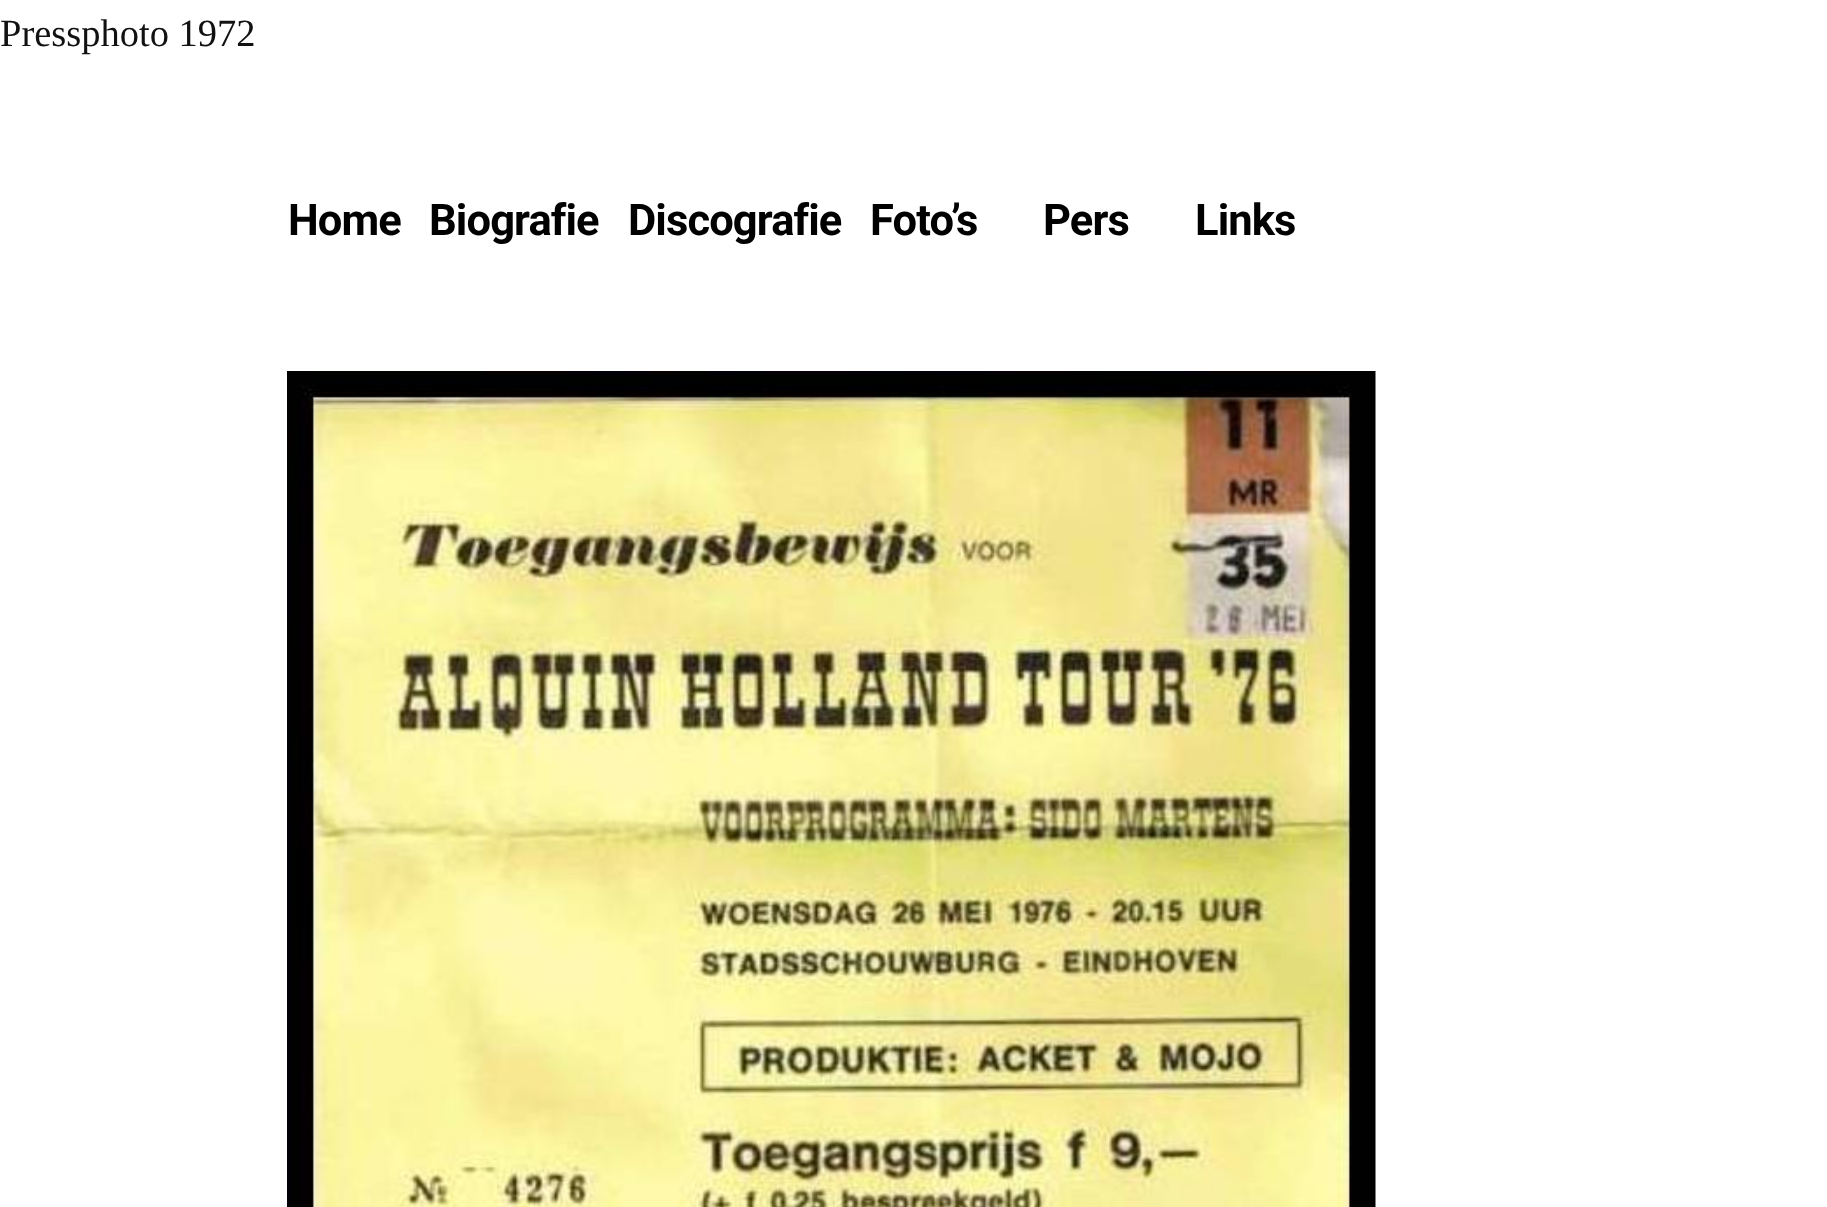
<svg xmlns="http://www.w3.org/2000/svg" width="1827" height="1207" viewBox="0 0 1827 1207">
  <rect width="100%" height="100%" fill="#fff"/>
  <image x="287" y="371" width="1089" height="836" href="img/1.png"/>
  <text x="0" y="46" font-family="Liberation Serif" font-size="38.5" fill="#111">Pressphoto 1972</text>
  <g font-family="Roboto" font-size="43.5" font-weight="bold" letter-spacing="-0.9" fill="#000">
    <text x="288" y="235">Home</text>
    <text x="429" y="235">Biografie</text>
    <text x="628" y="235">Discografie</text>
    <text x="870" y="235">Foto’s</text>
    <text x="1043" y="235">Pers</text>
    <text x="1195" y="235">Links</text>
  </g>
</svg>
